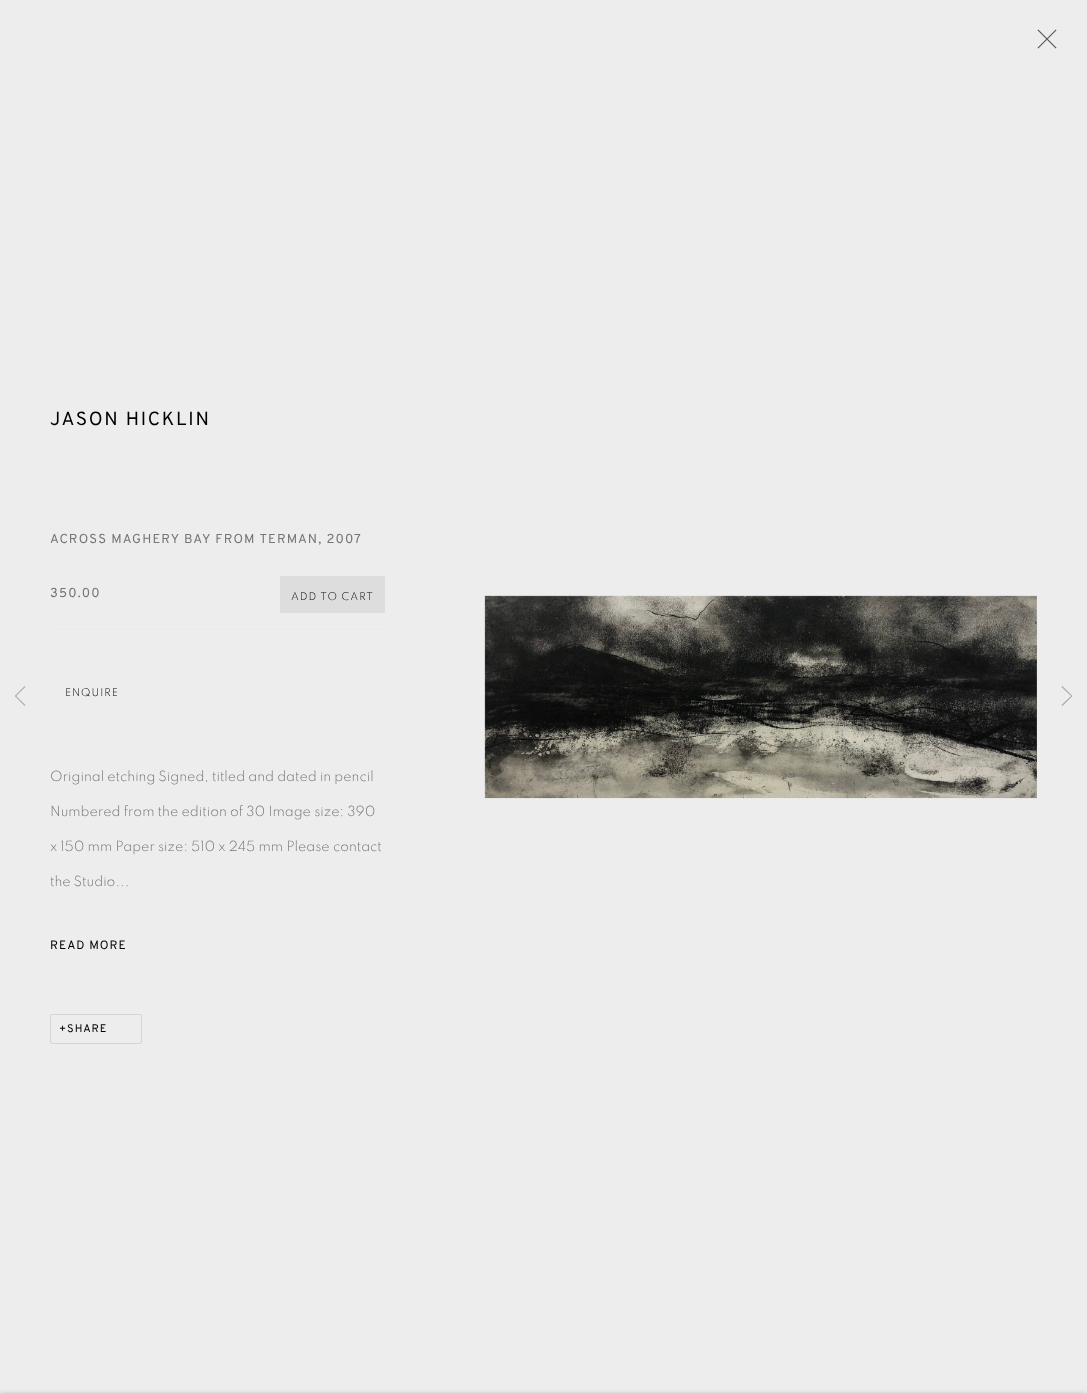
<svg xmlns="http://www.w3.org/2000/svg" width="1087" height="1394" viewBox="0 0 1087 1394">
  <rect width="100%" height="100%" fill="#ededed"/>
  <image x="1037" y="29" width="20" height="20" href="img/1.png"/>
  <path d="M50 629h335v1H50z" fill="#eaeaea"/>
  <path d="M280 576h105v37H280z" fill="#ddd"/>
  <rect x="50.5" y="1014.5" width="91" height="29" rx="1.5" fill="none" stroke="#d4d4d4"/>
  <image x="484" y="595" width="553" height="204" href="img/2.png"/>
  <image x="15" y="686" width="11" height="20" href="img/3.png"/>
  <path d="M1072.5 696L1062.5 686L1061.5 687L1071 696L1061.5 705L1062.5 706Z" fill="#acacac"/>
  <path d="M0 1394h1087v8H0z" fill="#0000003b" filter="blur(2.5px)"/>
  <text x="50" y="425" font-family="Overpass" font-size="19" letter-spacing="1.75" fill="#010101">JASON HICKLIN</text>
  <g font-family="Overpass" font-size="13" letter-spacing="1.15" fill="#757575">
    <text x="50" y="543">ACROSS MAGHERY BAY FROM TERMAN, 2007</text>
    <text x="50" y="597">350.00</text>
  </g>
  <g font-family="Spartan" font-size="11" font-weight="300" letter-spacing="1" fill="#010101">
    <text x="291" y="600">ADD TO CART</text>
    <text x="65" y="696">ENQUIRE</text>
  </g>
  <g font-family="Spartan" font-size="14.5" font-weight="300" fill="#757575">
    <text x="50" y="781">Original etching Signed, titled and dated in pencil</text>
    <text x="50" y="816">Numbered from the edition of 30 Image size: 390</text>
    <text x="50" y="851">x 150 mm Paper size: 510 x 245 mm Please contact</text>
    <text x="50" y="886">the Studio...</text>
  </g>
  <text x="50" y="949" font-family="Overpass" font-size="12" letter-spacing="1" fill="#010101">READ MORE</text>
  <text x="59" y="1032" font-family="Overpass" font-size="11" letter-spacing="1" fill="#010101">+SHARE</text>
</svg>
